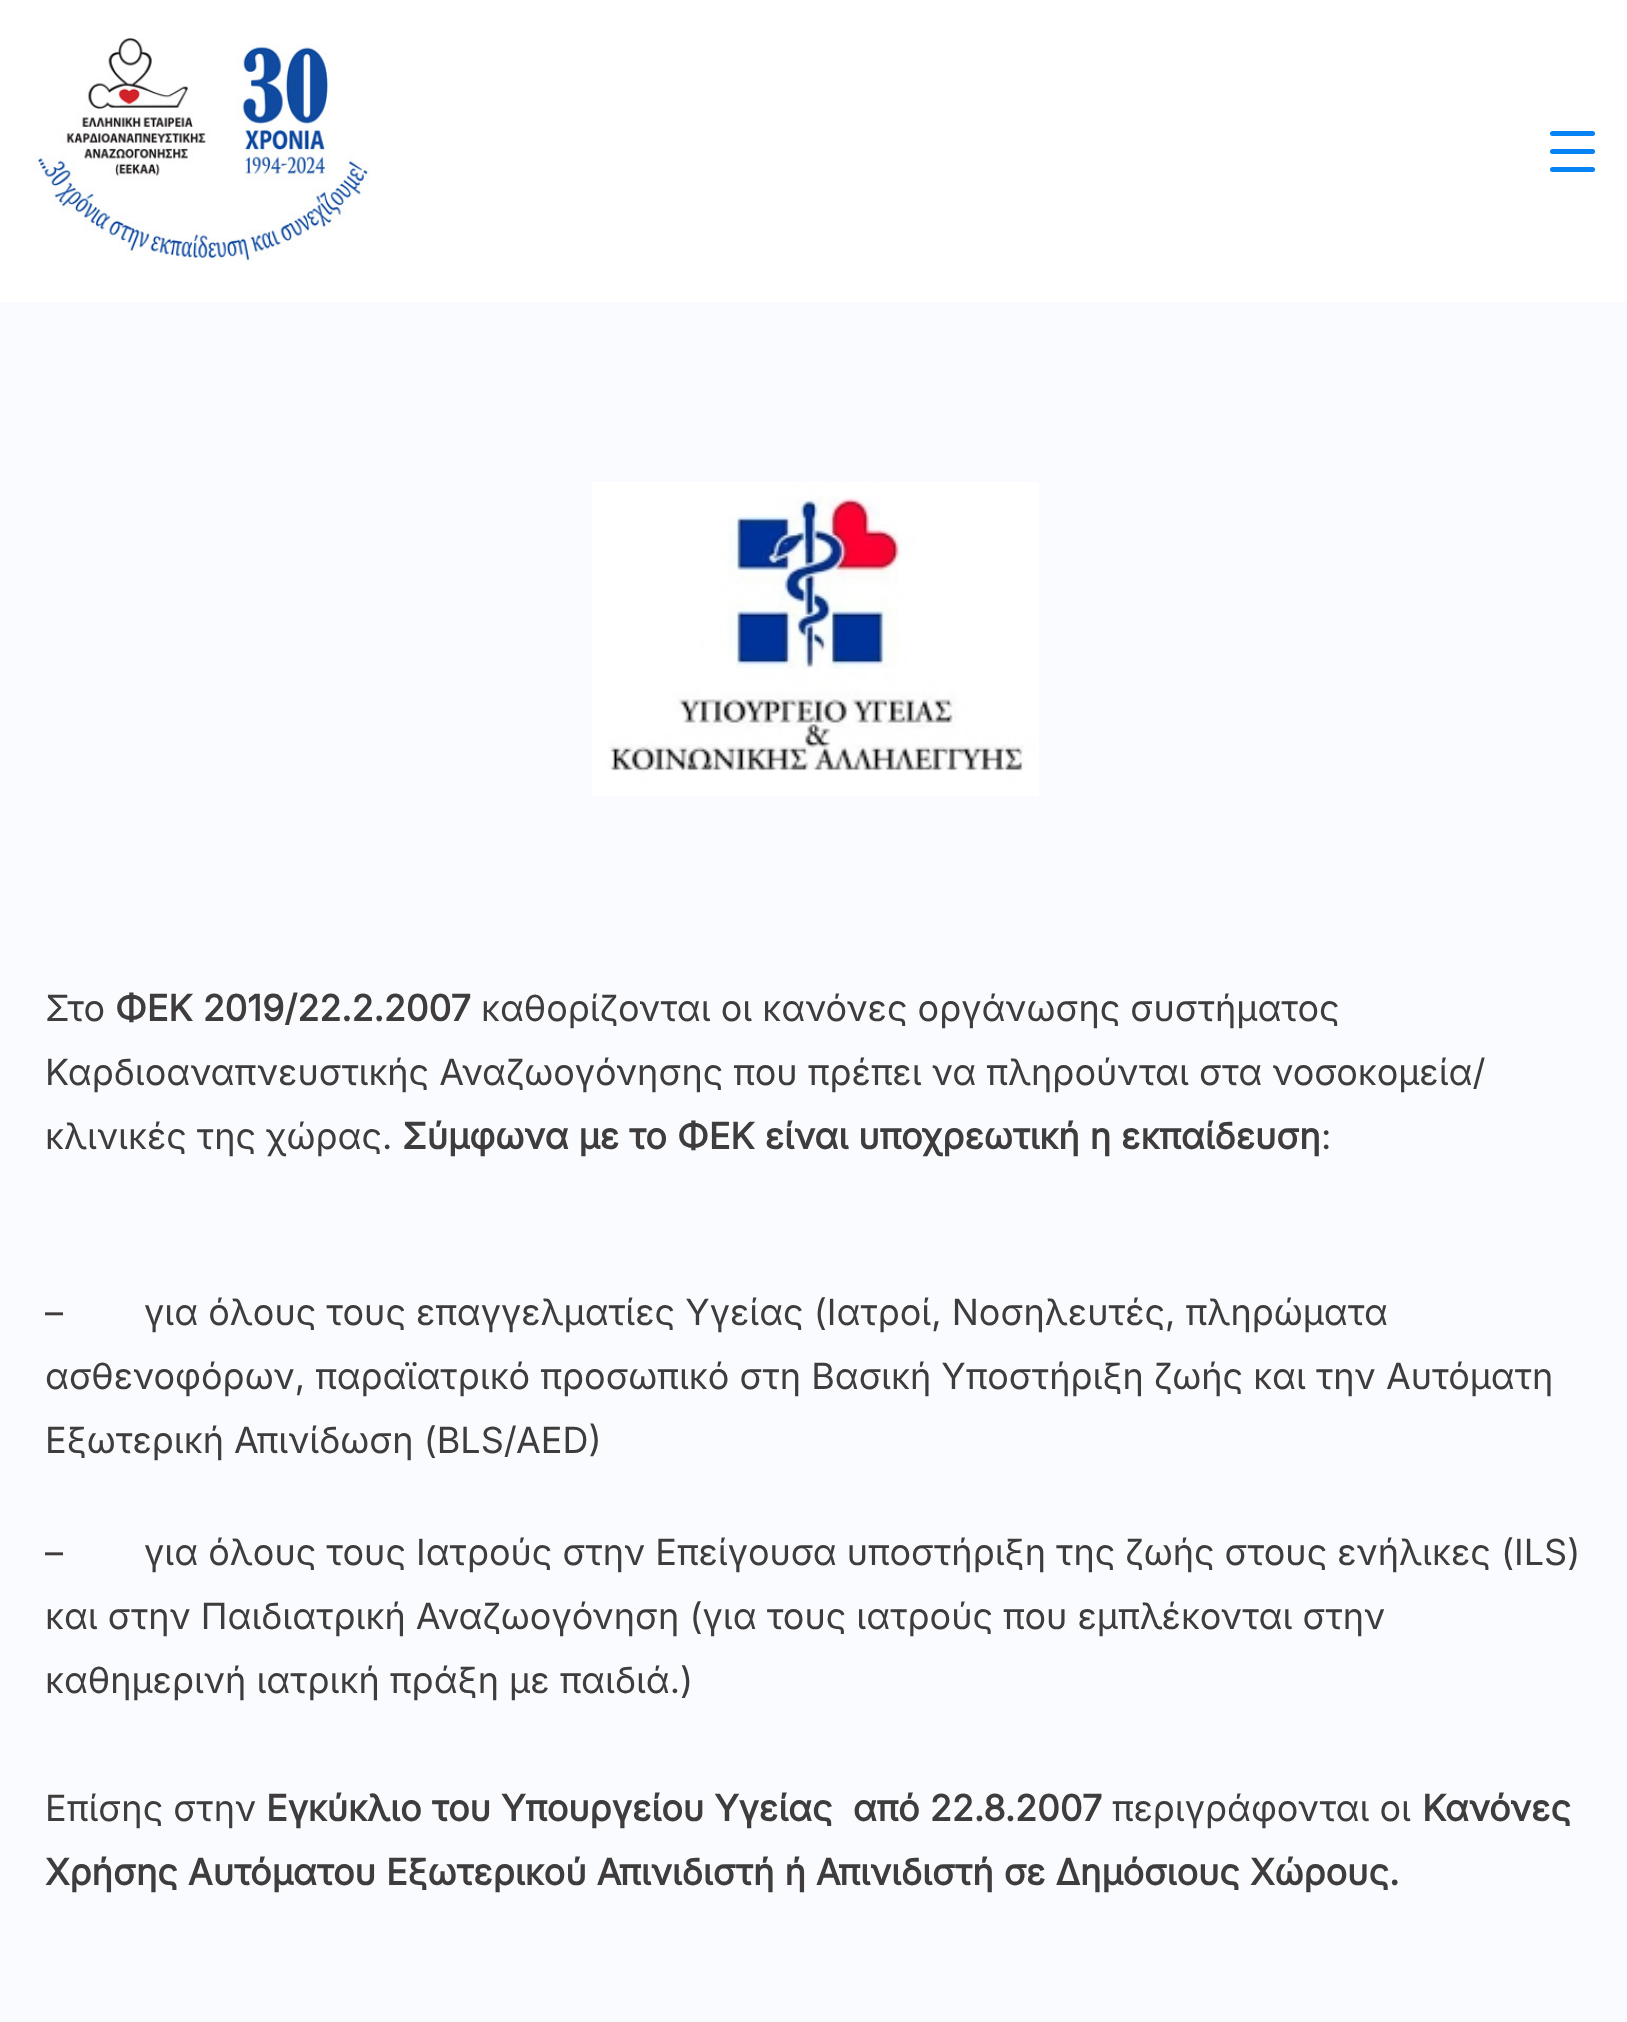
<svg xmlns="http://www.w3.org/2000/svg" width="1627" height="2022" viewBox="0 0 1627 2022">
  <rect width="100%" height="100%" fill="#f9fbfe"/>
  <path d="M0 0h1627v302H0z" fill="#fff"/>
  <image x="34" y="38" width="337" height="223" href="img/1.png"/>
  <rect x="1550" y="149" width="45" height="5" rx="2.5" fill="#0583f2"/>
  <rect x="1550" y="131" width="45" height="5" rx="2.5" fill="#0583f2"/>
  <rect x="1550" y="167" width="45" height="5" rx="2.5" fill="#0583f2"/>
  <image x="592" y="482" width="447" height="314" href="img/2.png"/>
  <text x="45" y="1021" font-family="Inter" font-size="36" fill="#3e3c3c">Στο</text>
  <text x="115" y="1021" font-family="Inter" font-size="36" font-weight="bold" fill="#3e3c3c">ΦΕΚ 2019/22.2.2007</text>
  <g font-family="Inter" font-size="36" fill="#3e3c3c">
    <text x="481" y="1021">καθορίζονται οι κανόνες οργάνωσης συστήματος</text>
    <text x="45" y="1085">Καρδιοαναπνευστικής Αναζωογόνησης που πρέπει να πληρούνται στα νοσοκομεία/</text>
    <text x="45" y="1149">κλινικές της χώρας.</text>
  </g>
  <text x="402" y="1149" font-family="Inter" font-size="36" font-weight="bold" fill="#3e3c3c">Σύμφωνα με το ΦΕΚ είναι υποχρεωτική η εκπαίδευση</text>
  <g font-family="Inter" font-size="36" fill="#3e3c3c">
    <text x="1321" y="1149">:</text>
    <text x="45" y="1325" xml:space="preserve">–        για όλους τους επαγγελματίες Υγείας (Ιατροί, Νοσηλευτές, πληρώματα</text>
    <text x="45" y="1389">ασθενοφόρων, παραϊατρικό προσωπικό στη Βασική Υποστήριξη ζωής και την Αυτόματη</text>
    <text x="45" y="1453">Εξωτερική Απινίδωση (BLS/</text>
    <text x="516" y="1453">AED)</text>
    <text x="45" y="1565" xml:space="preserve">–        για όλους τους Ιατρούς στην Επείγουσα υποστήριξη της ζωής στους ενήλικες (ILS)</text>
    <text x="45" y="1629">και στην Παιδιατρική Αναζωογόνηση (για τους ιατρούς που εμπλέκονται στην</text>
    <text x="45" y="1693">καθημερινή ιατρική πράξη με παιδιά.)</text>
    <text x="45" y="1821">Επίσης στην</text>
  </g>
  <text x="266" y="1821" font-family="Inter" font-size="36" font-weight="bold" fill="#3e3c3c" xml:space="preserve">Εγκύκλιο του Υπουργείου Υγείας  από 22.8.2007</text>
  <text x="1112" y="1821" font-family="Inter" font-size="36" fill="#3e3c3c">περιγράφονται οι</text>
  <g font-family="Inter" font-size="36" font-weight="bold" fill="#3e3c3c">
    <text x="1422" y="1821">Κανόνες</text>
    <text x="45" y="1885">Χρήσης Αυτόματου Εξωτερικού Απινιδιστή ή Απινιδιστή σε Δημόσιους Χώρους.</text>
  </g>
</svg>
